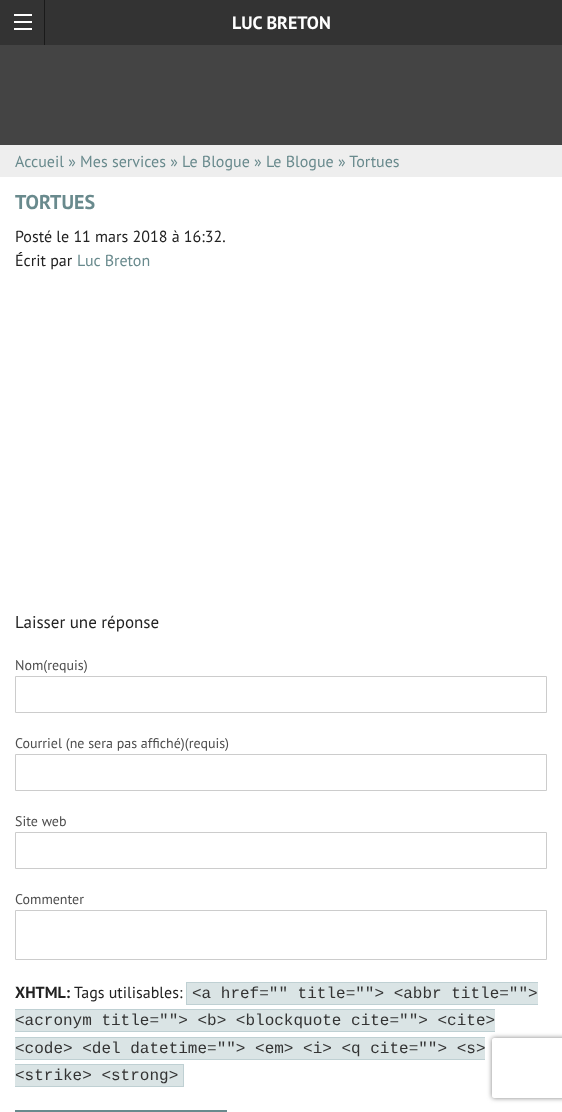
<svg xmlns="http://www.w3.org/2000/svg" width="562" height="1112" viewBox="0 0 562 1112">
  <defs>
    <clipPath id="clip1"><path d="M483 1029H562V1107H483ZM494 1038H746C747 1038 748 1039 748 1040V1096C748 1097 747 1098 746 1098H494C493 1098 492 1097 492 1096V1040C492 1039 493 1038 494 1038Z" clip-rule="evenodd"/></clipPath>
  </defs>
  <rect width="100%" height="100%" fill="#fff"/>
  <path d="M0 0h562v45H0z" fill="#333"/>
  <path d="M44 0h1v45H44z" fill="#1a1a1a"/>
  <path d="M14 28h18v2H14z" fill="#fff"/>
  <path d="M14 21h18v2H14z" fill="#fff"/>
  <path d="M14 14h18v2H14z" fill="#fff"/>
  <path d="M0 45h562v100H0z" fill="#444"/>
  <path d="M0 145h562v32H0z" fill="#eee"/>
  <path d="M15.5 676.5h531v36H15.5z" fill="none" stroke="#ccc"/>
  <path d="M15.5 754.5h531v36H15.5z" fill="none" stroke="#ccc"/>
  <path d="M15.5 832.5h531v36H15.5z" fill="none" stroke="#ccc"/>
  <path d="M15.5 910.5h531v49H15.5z" fill="none" stroke="#ccc"/>
  <path d="M187 983h351v21H187z" fill="#dae4e5"/>
  <path d="M186 982h352v1H186z" fill="#bfd0d3"/>
  <path d="M186 1004h352v1H186z" fill="#bfd0d3"/>
  <path d="M186 982h1v23H186z" fill="#bfd0d3"/>
  <path d="M15 1010h480v21H15z" fill="#dae4e5"/>
  <path d="M15 1009h480v1H15z" fill="#bfd0d3"/>
  <path d="M15 1031h480v1H15z" fill="#bfd0d3"/>
  <path d="M15 1038h470v21H15z" fill="#dae4e5"/>
  <path d="M15 1037h470v1H15z" fill="#bfd0d3"/>
  <path d="M15 1059h470v1H15z" fill="#bfd0d3"/>
  <path d="M15 1065h168v21H15z" fill="#dae4e5"/>
  <path d="M15 1064h169v1H15z" fill="#bfd0d3"/>
  <path d="M183 1064h1v23H183z" fill="#bfd0d3"/>
  <path d="M15 1086h169v1H15z" fill="#bfd0d3"/>
  <path d="M15 1110h212v2H15z" fill="#698a8d"/>
  <g clip-path="url(#clip1)">
    <rect x="492" y="1038" width="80" height="60" rx="2" fill="#808080" filter="blur(2.5px)"/>
  </g>
  <text x="232" y="29" font-family="PT Sans" font-size="18" font-weight="bold" fill="#fff">LUC BRETON</text>
  <text x="15" y="167" font-family="PT Sans" font-size="16" fill="#698a8d">Accueil » Mes services » Le Blogue » Le Blogue » Tortues</text>
  <text x="15" y="209" font-family="PT Sans" font-size="20" font-weight="bold" fill="#698a8d">TORTUES</text>
  <g font-family="PT Sans" font-size="16" fill="#222">
    <text x="15" y="242">Posté le 11 mars 2018 à 16:32.</text>
    <text x="15" y="266">Écrit par</text>
  </g>
  <text x="77" y="266" font-family="PT Sans" font-size="16" fill="#698a8d">Luc Breton</text>
  <text x="15" y="628" font-family="PT Sans" font-size="17" fill="#222">Laisser une réponse</text>
  <g font-family="PT Sans" font-size="14" fill="#4d4d4d">
    <text x="15" y="670">Nom(requis)</text>
    <text x="15" y="748">Courriel (ne sera pas affiché)(requis)</text>
    <text x="15" y="826">Site web</text>
    <text x="15" y="904">Commenter</text>
  </g>
  <text x="15" y="998" font-family="PT Sans" font-size="16" font-weight="bold" fill="#222">XHTML:</text>
  <text x="74" y="998" font-family="PT Sans" font-size="16" fill="#222">Tags utilisables:</text>
  <g font-family="Liberation Mono" font-size="16" fill="#333">
    <text x="192" y="998">&lt;a href="" title=""&gt; &lt;abbr title=""&gt;</text>
    <text x="15" y="1025">&lt;acronym title=""&gt; &lt;b&gt; &lt;blockquote cite=""&gt; &lt;cite&gt;</text>
    <text x="15" y="1053">&lt;code&gt; &lt;del datetime=""&gt; &lt;em&gt; &lt;i&gt; &lt;q cite=""&gt; &lt;s&gt;</text>
    <text x="15" y="1080">&lt;strike&gt; &lt;strong&gt;</text>
  </g>
</svg>
